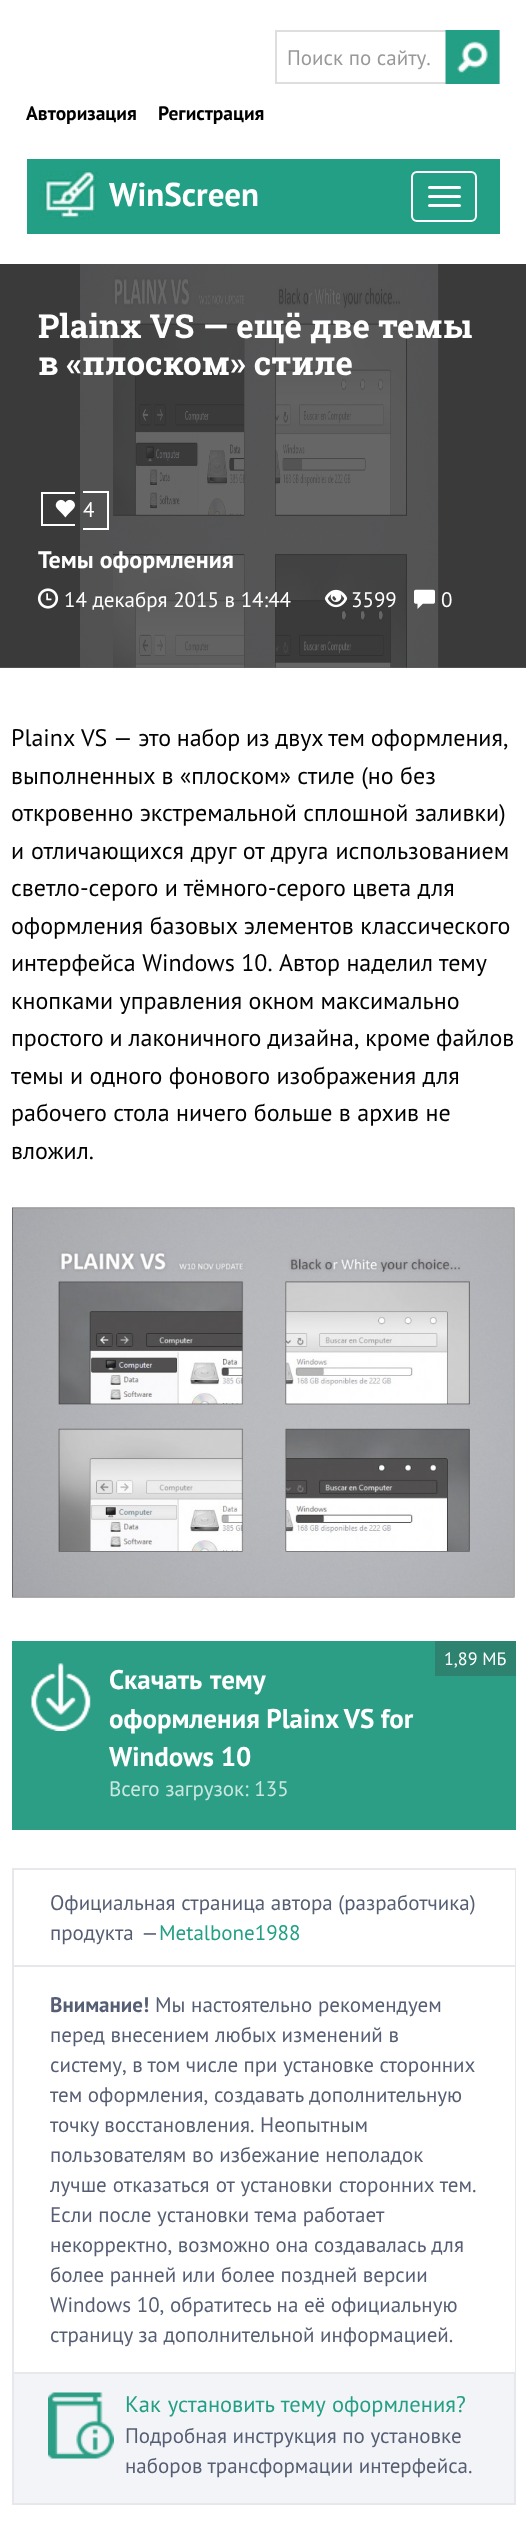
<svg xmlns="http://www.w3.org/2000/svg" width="526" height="2530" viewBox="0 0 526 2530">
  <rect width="100%" height="100%" fill="#fff"/>
  <path d="M0 667h526v1H0z" fill="#666"/>
  <path d="M276 31h223v52H276z" fill="none" stroke="#dedede" stroke-width="2"/>
  <image x="445" y="30" width="55" height="54" href="img/1.png"/>
  <path d="M27 159h473v75H27z" fill="#239f85"/>
  <image x="39" y="171" width="60" height="48" href="img/2.png"/>
  <rect x="412" y="172" width="64" height="49" rx="5" fill="none" stroke="#fff" stroke-width="2"/>
  <rect x="428" y="186" width="33" height="3" rx="1.5" fill="#fff"/>
  <rect x="428" y="195" width="33" height="3" rx="1.5" fill="#fff"/>
  <rect x="428" y="204" width="33" height="3" rx="1.5" fill="#fff"/>
  <image x="0" y="264" width="526" height="404" href="img/3.png"/>
  <path d="M41 492h34v2H41z" fill="#fff"/>
  <path d="M41 524h34v2H41z" fill="#fff"/>
  <path d="M41 492h2v33H41z" fill="#fff"/>
  <path d="M83 491h25v2H83z" fill="#fff"/>
  <path d="M107 491h2v39H107z" fill="#fff"/>
  <path d="M83 528h25v2H83z" fill="#fff"/>
  <image x="55" y="499" width="20" height="19" href="img/4.png"/>
  <image x="37" y="588" width="22" height="21" href="img/5.png"/>
  <image x="324" y="589" width="24" height="19" href="img/6.png"/>
  <image x="414" y="589" width="21" height="20" href="img/7.png"/>
  <image x="12" y="1207" width="503" height="391" href="img/8.png"/>
  <path d="M12 1641h504v189H12z" fill="#2b9e85"/>
  <image x="31" y="1663" width="60" height="68" href="img/9.png"/>
  <path d="M435 1641h81v35H435z" fill="#2d8370"/>
  <path d="M12 1868h504v2H12z" fill="#e7e8ec"/>
  <path d="M515 1868h1v97H515z" fill="#e7e8ec"/>
  <path d="M12 1868h2v97H12z" fill="#e7e8ec"/>
  <path d="M12 1965h504v2H12z" fill="#e7e8ec"/>
  <path d="M515 1965h1v407H515z" fill="#e7e8ec"/>
  <path d="M12 1965h2v407H12z" fill="#e7e8ec"/>
  <path d="M14 2374h500v129H14z" fill="#f2f4f7"/>
  <image x="48" y="2392" width="66" height="67" href="img/10.png"/>
  <path d="M13 2373h502v131H13z" fill="none" stroke="#e7e8ec" stroke-width="2"/>
  <text x="287" y="65" font-family="PT Sans" font-size="21" fill="#999">Поиск по сайту.</text>
  <g font-family="PT Sans" font-size="19.5" font-weight="bold" fill="#000">
    <text x="26" y="120">Авторизация</text>
    <text x="158" y="120">Регистрация</text>
  </g>
  <text x="109" y="206" font-family="PT Sans" font-size="33" font-weight="bold" fill="#fff">WinScreen</text>
  <g font-family="Roboto Slab" font-size="33" font-weight="bold" fill="#fff">
    <text x="38" y="338">Plainx VS — ещё две темы</text>
    <text x="38" y="375">в «плоском» стиле</text>
  </g>
  <text x="83" y="517" font-family="PT Sans" font-size="21" fill="#fff">4</text>
  <text x="38" y="568" font-family="PT Sans" font-size="24" font-weight="bold" fill="#fff">Темы оформления</text>
  <g font-family="PT Sans" font-size="21" fill="#fff">
    <text x="64" y="607">14 декабря 2015 в 14:44</text>
    <text x="351" y="607">3599</text>
    <text x="441" y="607">0</text>
  </g>
  <g font-family="PT Sans" font-size="24" fill="#000">
    <text x="11" y="746" word-spacing="-0.75">Plainx VS — это набор из двух тем оформления,</text>
    <text x="11" y="784">выполненных в «плоском» стиле (но без</text>
    <text x="11" y="821">откровенно экстремальной сплошной заливки)</text>
    <text x="11" y="859" word-spacing="0.5">и отличающихся друг от друга использованием</text>
    <text x="11" y="896">светло-серого и тёмного-серого цвета для</text>
    <text x="11" y="934">оформления базовых элементов классического</text>
    <text x="11" y="971">интерфейса Windows 10. Автор наделил тему</text>
    <text x="11" y="1009">кнопками управления окном максимально</text>
    <text x="11" y="1046" word-spacing="-0.5">простого и лаконичного дизайна, кроме файлов</text>
    <text x="11" y="1084">темы и одного фонового изображения для</text>
    <text x="11" y="1121">рабочего стола ничего больше в архив не</text>
    <text x="11" y="1159">вложил.</text>
  </g>
  <text x="444" y="1665" font-family="PT Sans" font-size="18" fill="#fff">1,89 МБ</text>
  <g font-family="PT Sans" font-size="27" font-weight="bold" fill="#fff">
    <text x="109" y="1689" word-spacing="1">Скачать тему</text>
    <text x="109" y="1728" word-spacing="-0.5">оформления Plainx VS for</text>
    <text x="109" y="1766">Windows 10</text>
  </g>
  <text x="109" y="1796" font-family="PT Sans" font-size="21" fill="#cae7e0">Всего загрузок: 135</text>
  <g font-family="PT Sans" font-size="21" fill="#565e73">
    <text x="50" y="1910">Официальная страница автора (разработчика)</text>
    <text x="50" y="1940" word-spacing="2">продукта —</text>
  </g>
  <text x="159" y="1940" font-family="PT Sans" font-size="21" fill="#239f85">Metalbone1988</text>
  <text x="50" y="2012" font-family="PT Sans" font-size="21" font-weight="bold" fill="#565e73">Внимание!</text>
  <g font-family="PT Sans" font-size="21" fill="#565e73">
    <text x="155" y="2012">Мы настоятельно рекомендуем</text>
    <text x="50" y="2042">перед внесением любых изменений в</text>
    <text x="50" y="2072" word-spacing="-0.25">систему, в том числе при установке сторонних</text>
    <text x="50" y="2102">тем оформления, создавать дополнительную</text>
    <text x="50" y="2132">точку восстановления. Неопытным</text>
    <text x="50" y="2162">пользователям во избежание неполадок</text>
    <text x="50" y="2192" word-spacing="0.5">лучше отказаться от установки сторонних тем.</text>
    <text x="50" y="2222">Если после установки тема работает</text>
    <text x="50" y="2252">некорректно, возможно она создавалась для</text>
    <text x="50" y="2282">более ранней или более поздней версии</text>
    <text x="50" y="2312">Windows 10, обратитесь на её официальную</text>
    <text x="50" y="2342">страницу за дополнительной информацией.</text>
  </g>
  <text x="125" y="2412" word-spacing="1" font-family="PT Sans" font-size="22.5" fill="#239f85">Как установить тему оформления?</text>
  <g font-family="PT Sans" font-size="21" fill="#565e73">
    <text x="125" y="2443">Подробная инструкция по установке</text>
    <text x="125" y="2473">наборов трансформации интерфейса.</text>
  </g>
</svg>
